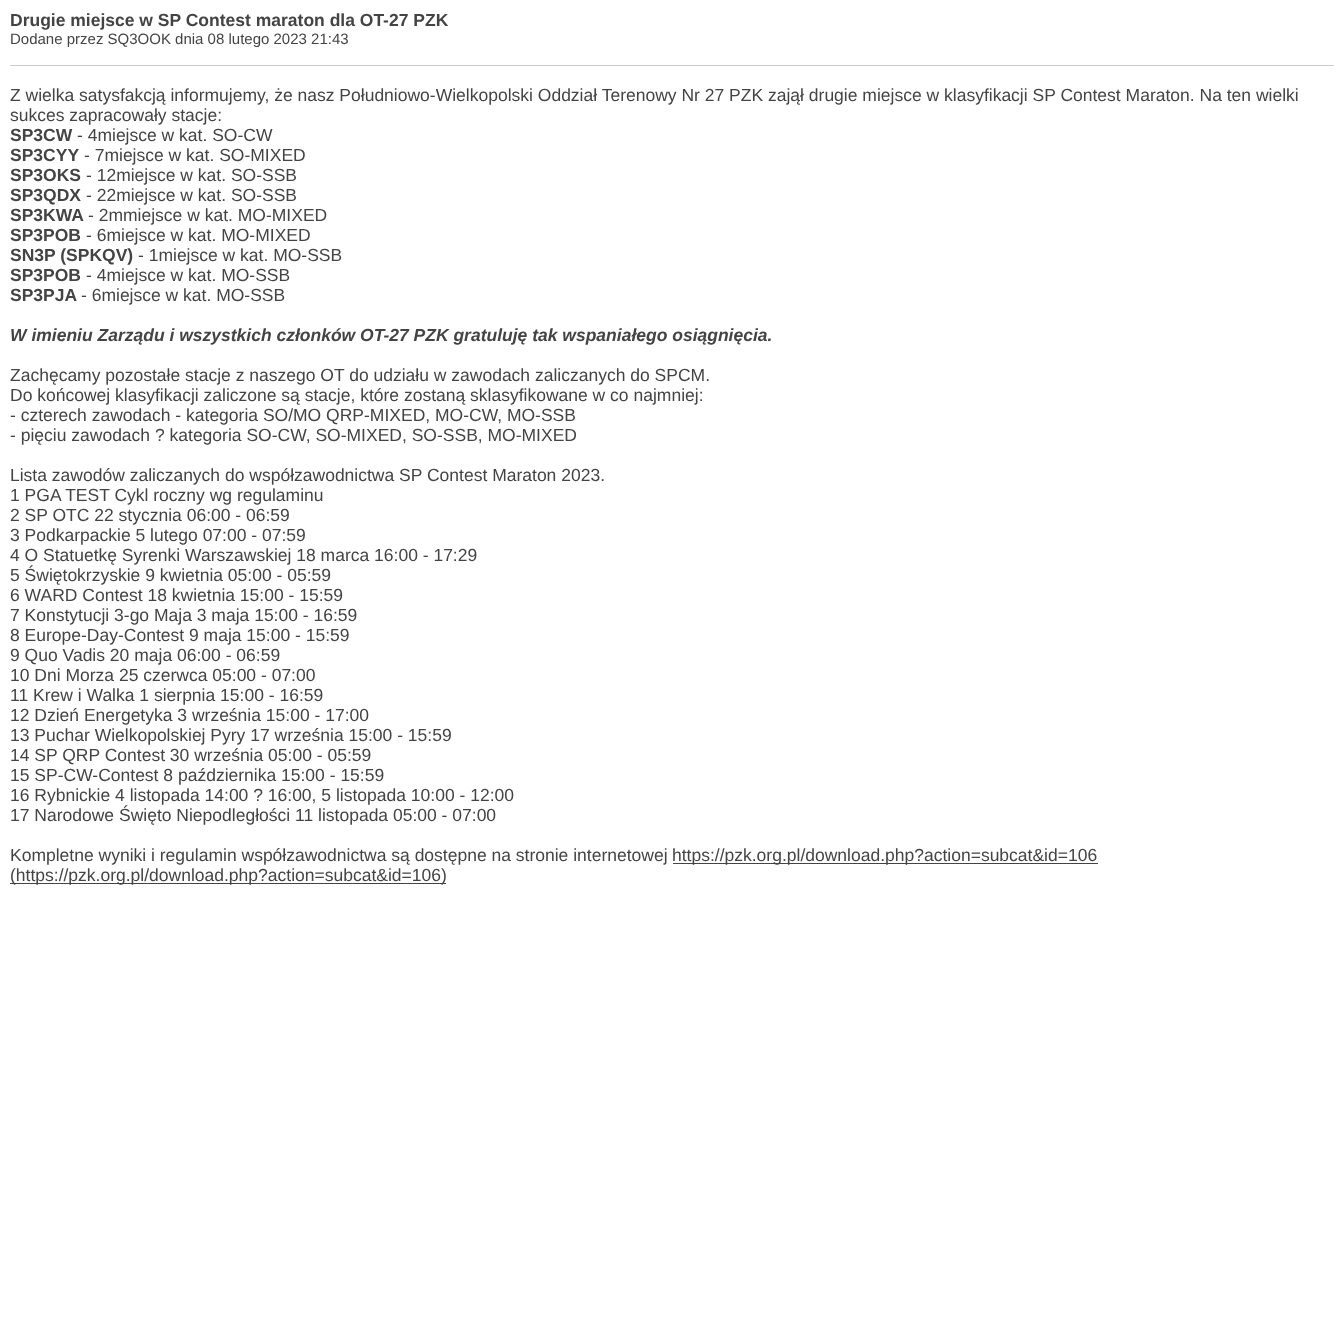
<svg xmlns="http://www.w3.org/2000/svg" width="1343" height="1340" viewBox="0 0 1343 1340">
  <rect width="100%" height="100%" fill="#fff"/>
  <path d="M10 65h1324v1H10z" fill="#ccc"/>
  <path d="M673 863h425v1H673z" fill="#444"/>
  <path d="M10 883h436v1H10z" fill="#444"/>
  <text x="10" y="26" font-family="Liberation Sans" font-size="17.5" font-weight="bold" fill="#444">Drugie miejsce w SP Contest maraton dla OT-27 PZK</text>
  <text x="10" y="44" font-family="Liberation Sans" font-size="15" fill="#444">Dodane przez SQ3OOK dnia 08 lutego 2023 21:43</text>
  <g font-family="Liberation Sans" font-size="17.5" fill="#444">
    <text x="10" y="101">Z wielka satysfakcją informujemy, że nasz Południowo-Wielkopolski Oddział Terenowy Nr 27 PZK zajął drugie miejsce w klasyfikacji SP Contest Maraton. Na ten wielki</text>
    <text x="10" y="121">sukces zapracowały stacje:</text>
  </g>
  <text x="10" y="141" font-family="Liberation Sans" font-size="17.5" font-weight="bold" fill="#444">SP3CW</text>
  <text x="77" y="141" font-family="Liberation Sans" font-size="17.5" fill="#444">- 4miejsce w kat. SO-CW</text>
  <text x="10" y="161" font-family="Liberation Sans" font-size="17.5" font-weight="bold" fill="#444">SP3CYY</text>
  <text x="84" y="161" font-family="Liberation Sans" font-size="17.5" fill="#444">- 7miejsce w kat. SO-MIXED</text>
  <text x="10" y="181" font-family="Liberation Sans" font-size="17.5" font-weight="bold" fill="#444">SP3OKS</text>
  <text x="86" y="181" font-family="Liberation Sans" font-size="17.5" fill="#444">- 12miejsce w kat. SO-SSB</text>
  <text x="10" y="201" font-family="Liberation Sans" font-size="17.5" font-weight="bold" fill="#444">SP3QDX</text>
  <text x="86" y="201" font-family="Liberation Sans" font-size="17.5" fill="#444">- 22miejsce w kat. SO-SSB</text>
  <text x="10" y="221" font-family="Liberation Sans" font-size="17.5" font-weight="bold" fill="#444">SP3KWA</text>
  <text x="88" y="221" font-family="Liberation Sans" font-size="17.5" fill="#444">- 2mmiejsce w kat. MO-MIXED</text>
  <text x="10" y="241" font-family="Liberation Sans" font-size="17.5" font-weight="bold" fill="#444">SP3POB</text>
  <text x="86" y="241" font-family="Liberation Sans" font-size="17.5" fill="#444">- 6miejsce w kat. MO-MIXED</text>
  <text x="10" y="261" font-family="Liberation Sans" font-size="17.5" font-weight="bold" fill="#444">SN3P (SPKQV)</text>
  <text x="138" y="261" font-family="Liberation Sans" font-size="17.5" fill="#444">- 1miejsce w kat. MO-SSB</text>
  <text x="10" y="281" font-family="Liberation Sans" font-size="17.5" font-weight="bold" fill="#444">SP3POB</text>
  <text x="86" y="281" font-family="Liberation Sans" font-size="17.5" fill="#444">- 4miejsce w kat. MO-SSB</text>
  <text x="10" y="301" font-family="Liberation Sans" font-size="17.5" font-weight="bold" fill="#444">SP3PJA</text>
  <text x="81" y="301" font-family="Liberation Sans" font-size="17.5" fill="#444">- 6miejsce w kat. MO-SSB</text>
  <text x="10" y="341" font-family="Liberation Sans" font-size="17.5" font-weight="bold" font-style="italic" fill="#444">W imieniu Zarządu i wszystkich członków OT-27 PZK gratuluję tak wspaniałego osiągnięcia.</text>
  <g font-family="Liberation Sans" font-size="17.5" fill="#444">
    <text x="10" y="381">Zachęcamy pozostałe stacje z naszego OT do udziału w zawodach zaliczanych do SPCM.</text>
    <text x="10" y="401">Do końcowej klasyfikacji zaliczone są stacje, które zostaną sklasyfikowane w co najmniej:</text>
    <text x="10" y="421">- czterech zawodach - kategoria SO/MO QRP-MIXED, MO-CW, MO-SSB</text>
    <text x="10" y="441">- pięciu zawodach ? kategoria SO-CW, SO-MIXED, SO-SSB, MO-MIXED</text>
    <text x="10" y="481">Lista zawodów zaliczanych do współzawodnictwa SP Contest Maraton 2023.</text>
    <text x="10" y="501">1 PGA TEST Cykl roczny wg regulaminu</text>
    <text x="10" y="521">2 SP OTC 22 stycznia 06:00 - 06:59</text>
    <text x="10" y="541">3 Podkarpackie 5 lutego 07:00 - 07:59</text>
    <text x="10" y="561">4 O Statuetkę Syrenki Warszawskiej 18 marca 16:00 - 17:29</text>
    <text x="10" y="581">5 Świętokrzyskie 9 kwietnia 05:00 - 05:59</text>
    <text x="10" y="601">6 WARD Contest 18 kwietnia 15:00 - 15:59</text>
    <text x="10" y="621">7 Konstytucji 3-go Maja 3 maja 15:00 - 16:59</text>
    <text x="10" y="641">8 Europe-Day-Contest 9 maja 15:00 - 15:59</text>
    <text x="10" y="661">9 Quo Vadis 20 maja 06:00 - 06:59</text>
    <text x="10" y="681">10 Dni Morza 25 czerwca 05:00 - 07:00</text>
    <text x="10" y="701">11 Krew i Walka 1 sierpnia 15:00 - 16:59</text>
    <text x="10" y="721">12 Dzień Energetyka 3 września 15:00 - 17:00</text>
    <text x="10" y="741">13 Puchar Wielkopolskiej Pyry 17 września 15:00 - 15:59</text>
    <text x="10" y="761">14 SP QRP Contest 30 września 05:00 - 05:59</text>
    <text x="10" y="781">15 SP-CW-Contest 8 października 15:00 - 15:59</text>
    <text x="10" y="801">16 Rybnickie 4 listopada 14:00 ? 16:00, 5 listopada 10:00 - 12:00</text>
    <text x="10" y="821">17 Narodowe Święto Niepodległości 11 listopada 05:00 - 07:00</text>
    <text x="10" y="861">Kompletne wyniki i regulamin współzawodnictwa są dostępne na stronie internetowej</text>
    <text x="672" y="861">https://pzk.org.pl/download.php?action=subcat&amp;id=106</text>
    <text x="10" y="881">(https://pzk.org.pl/download.php?action=subcat&amp;id=106)</text>
  </g>
</svg>
